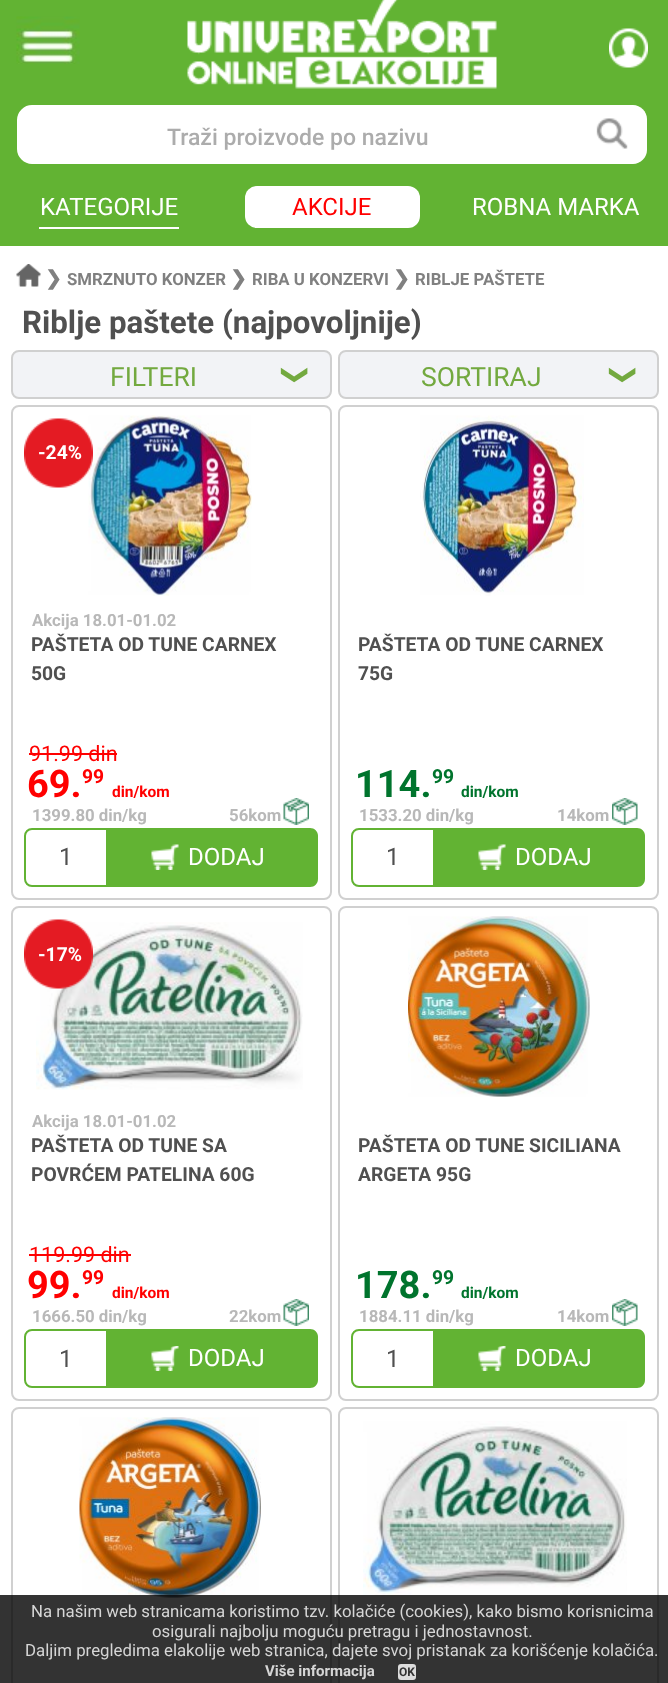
<svg xmlns="http://www.w3.org/2000/svg" width="668" height="1683" viewBox="0 0 668 1683">
  <rect width="100%" height="100%" fill="#fff"/>
  <path d="M0 0h668v246H0z" fill="#62b333"/>
  <image x="16" y="16" width="64" height="48" href="img/1.png"/>
  <image x="187" y="0" width="310" height="89" href="img/2.png"/>
  <image x="609" y="28" width="39" height="40" href="img/3.png"/>
  <path d="M32 106H580V163H32C24.5 163 18 156.5 18 149V120C18 112.5 24.5 106 32 106Z" fill="#fff" stroke="#fff" stroke-width="2"/>
  <path d="M581 105H633C640.5 105 647 111.5 647 119V150C647 157.5 640.5 164 633 164H581Z" fill="#fff"/>
  <image x="596" y="118" width="32" height="31" href="img/4.png"/>
  <path d="M39 227h140v2H39z" fill="#fff"/>
  <rect x="245" y="186" width="175" height="42" rx="12" fill="#fff"/>
  <image x="16" y="264" width="25" height="23" href="img/5.png"/>
  <rect x="12" y="351" width="319" height="47" rx="7" fill="#f2f3f6" stroke="#d0d0d0" stroke-width="2"/>
  <rect x="339" y="351" width="319" height="47" rx="7" fill="#f2f3f6" stroke="#d0d0d0" stroke-width="2"/>
  <rect x="12" y="406" width="319" height="493" rx="7" fill="none" stroke="#d0d0d0" stroke-width="2"/>
  <image x="88" y="415" width="164" height="181" href="img/7.png"/>
  <image x="24" y="418" width="69" height="70" href="img/6.png"/>
  <path d="M29 753h88v2H29z" fill="#f00"/>
  <image x="283" y="798" width="26" height="27" href="img/8.png"/>
  <path d="M32 829H107V886H32C28 886 25 883 25 879V836C25 832 28 829 32 829Z" fill="none" stroke="#62b333" stroke-width="2"/>
  <path d="M108 828H310C314.5 828 318 831.5 318 836V879C318 883.5 314.5 887 310 887H108Z" fill="#62b333"/>
  <image x="151" y="844" width="28" height="26" href="img/9.png"/>
  <rect x="339" y="406" width="319" height="493" rx="7" fill="none" stroke="#d0d0d0" stroke-width="2"/>
  <image x="420" y="415" width="164" height="181" href="img/10.png"/>
  <image x="612" y="798" width="26" height="27" href="img/11.png"/>
  <path d="M359 829H434V886H359C355 886 352 883 352 879V836C352 832 355 829 359 829Z" fill="none" stroke="#62b333" stroke-width="2"/>
  <path d="M435 828H637C641.5 828 645 831.5 645 836V879C645 883.5 641.5 887 637 887H435Z" fill="#62b333"/>
  <image x="478" y="844" width="28" height="26" href="img/9.png"/>
  <rect x="12" y="907" width="319" height="493" rx="7" fill="none" stroke="#d0d0d0" stroke-width="2"/>
  <image x="36" y="922" width="267" height="168" href="img/13.png"/>
  <image x="24" y="919" width="69" height="70" href="img/12.png"/>
  <path d="M29 1254h102v2H29z" fill="#f00"/>
  <image x="283" y="1299" width="26" height="27" href="img/8.png"/>
  <path d="M32 1330H107V1387H32C28 1387 25 1384 25 1380V1337C25 1333 28 1330 32 1330Z" fill="none" stroke="#62b333" stroke-width="2"/>
  <path d="M108 1329H310C314.5 1329 318 1332.5 318 1337V1380C318 1384.5 314.5 1388 310 1388H108Z" fill="#62b333"/>
  <image x="151" y="1346" width="28" height="25" href="img/14.png"/>
  <rect x="339" y="907" width="319" height="493" rx="7" fill="none" stroke="#d0d0d0" stroke-width="2"/>
  <image x="408" y="916" width="182" height="181" href="img/15.png"/>
  <image x="612" y="1299" width="26" height="27" href="img/11.png"/>
  <path d="M359 1330H434V1387H359C355 1387 352 1384 352 1380V1337C352 1333 355 1330 359 1330Z" fill="none" stroke="#62b333" stroke-width="2"/>
  <path d="M435 1329H637C641.5 1329 645 1332.5 645 1337V1380C645 1384.5 641.5 1388 637 1388H435Z" fill="#62b333"/>
  <image x="478" y="1346" width="28" height="25" href="img/14.png"/>
  <rect x="12" y="1408" width="319" height="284" rx="7" fill="none" stroke="#d0d0d0" stroke-width="2"/>
  <image x="79" y="1417" width="182" height="181" href="img/16.png"/>
  <rect x="339" y="1408" width="319" height="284" rx="7" fill="none" stroke="#d0d0d0" stroke-width="2"/>
  <image x="363" y="1421" width="264" height="175" href="img/17.png"/>
  <path d="M0 1595h668v88H0z" fill="#000000cc"/>
  <rect x="396.5" y="1662.5" width="21" height="19" rx="4.5" fill="#dcdcdc" stroke="#333" stroke-width="3"/>
  <text x="167" y="145" font-family="Roboto" font-size="23" font-weight="500" fill="#acacac">Traži proizvode po nazivu</text>
  <text x="40" y="215" font-family="Roboto" font-size="24" fill="#fff">KATEGORIJE</text>
  <text x="292" y="215" font-family="Roboto" font-size="24" fill="#f00">AKCIJE</text>
  <text x="472" y="215" font-family="Roboto" font-size="24" fill="#fff">ROBNA MARKA</text>
  <text x="45" y="285" font-family="DejaVu Sans" font-size="20" font-weight="bold" fill="#808080">❯</text>
  <text x="67" y="285" font-family="Roboto" font-size="16.8" font-weight="bold" fill="#808080">SMRZNUTO KONZER</text>
  <text x="230" y="285" font-family="DejaVu Sans" font-size="20" font-weight="bold" fill="#808080">❯</text>
  <text x="252" y="285" font-family="Roboto" font-size="16.8" font-weight="bold" fill="#808080">RIBA U KONZERVI</text>
  <text x="393" y="285" font-family="DejaVu Sans" font-size="20" font-weight="bold" fill="#808080">❯</text>
  <text x="415" y="285" font-family="Roboto" font-size="16.8" font-weight="bold" fill="#808080">RIBLJE PAŠTETE</text>
  <text x="22" y="333" font-family="Roboto" font-size="31.25" font-weight="bold" fill="#505050">Riblje paštete (najpovoljnije)</text>
  <text x="110" y="386" font-family="Roboto" font-size="26.5" fill="#73a93f">FILTERI</text>
  <text x="301" y="386" transform="rotate(-90 301 386)" font-family="DejaVu Sans" font-size="26.5" fill="#73a93f">❮</text>
  <text x="421" y="386" font-family="Roboto" font-size="26.5" fill="#73a93f">SORTIRAJ</text>
  <text x="629" y="386" transform="rotate(-90 629 386)" font-family="DejaVu Sans" font-size="26.5" fill="#73a93f">❮</text>
  <text x="38" y="459" font-family="Roboto" font-size="19.25" font-weight="bold" fill="#fff">-24%</text>
  <text x="32" y="626" font-family="Roboto" font-size="16.8" font-weight="bold" fill="#b8b8b8">Akcija 18.01-01.02</text>
  <g font-family="Roboto" font-size="19.25" font-weight="bold" fill="#505050">
    <text x="31" y="651">PAŠTETA OD TUNE CARNEX</text>
    <text x="31" y="680">50G</text>
  </g>
  <text x="29" y="761" font-family="Roboto" font-size="21.5" fill="#f00">91.99 din</text>
  <text x="27" y="797" font-family="Roboto" font-size="38" font-weight="bold" fill="#f00">69.</text>
  <text x="82" y="783" font-family="Roboto" font-size="19.25" font-weight="bold" fill="#f00">99</text>
  <text x="112" y="797" font-family="Roboto" font-size="15.5" font-weight="bold" fill="#f00">din/kom</text>
  <g font-family="Roboto" font-size="16.8" font-weight="bold" fill="#b8b8b8">
    <text x="32" y="821">1399.80 din/kg</text>
    <text x="229" y="821">56kom</text>
  </g>
  <text x="59" y="865" font-family="Roboto" font-size="24" fill="#505050">1</text>
  <text x="188" y="865" font-family="Roboto" font-size="24" fill="#fff">DODAJ</text>
  <g font-family="Roboto" font-size="19.25" font-weight="bold" fill="#505050">
    <text x="358" y="651">PAŠTETA OD TUNE CARNEX</text>
    <text x="358" y="680">75G</text>
  </g>
  <text x="355" y="797" font-family="Roboto" font-size="38" font-weight="bold" fill="#00742d">114.</text>
  <text x="432" y="783" font-family="Roboto" font-size="19.25" font-weight="bold" fill="#00742d">99</text>
  <text x="461" y="797" font-family="Roboto" font-size="15.5" font-weight="bold" fill="#00742d">din/kom</text>
  <g font-family="Roboto" font-size="16.8" font-weight="bold" fill="#b8b8b8">
    <text x="359" y="821">1533.20 din/kg</text>
    <text x="557" y="821">14kom</text>
  </g>
  <text x="386" y="865" font-family="Roboto" font-size="24" fill="#505050">1</text>
  <text x="515" y="865" font-family="Roboto" font-size="24" fill="#fff">DODAJ</text>
  <text x="38" y="961" font-family="Roboto" font-size="19.25" font-weight="bold" fill="#fff">-17%</text>
  <text x="32" y="1127" font-family="Roboto" font-size="16.8" font-weight="bold" fill="#b8b8b8">Akcija 18.01-01.02</text>
  <g font-family="Roboto" font-size="19.25" font-weight="bold" fill="#505050">
    <text x="31" y="1152">PAŠTETA OD TUNE SA</text>
    <text x="31" y="1181">POVRĆEM PATELINA 60G</text>
  </g>
  <text x="29" y="1262" font-family="Roboto" font-size="21.5" fill="#f00">119.99 din</text>
  <text x="27" y="1298" font-family="Roboto" font-size="38" font-weight="bold" fill="#f00">99.</text>
  <text x="82" y="1284" font-family="Roboto" font-size="19.25" font-weight="bold" fill="#f00">99</text>
  <text x="112" y="1298" font-family="Roboto" font-size="15.5" font-weight="bold" fill="#f00">din/kom</text>
  <g font-family="Roboto" font-size="16.8" font-weight="bold" fill="#b8b8b8">
    <text x="32" y="1322">1666.50 din/kg</text>
    <text x="229" y="1322">22kom</text>
  </g>
  <text x="59" y="1367" font-family="Roboto" font-size="24" fill="#505050">1</text>
  <text x="188" y="1366" font-family="Roboto" font-size="24" fill="#fff">DODAJ</text>
  <g font-family="Roboto" font-size="19.25" font-weight="bold" fill="#505050">
    <text x="358" y="1152">PAŠTETA OD TUNE SICILIANA</text>
    <text x="358" y="1181">ARGETA 95G</text>
  </g>
  <text x="355" y="1298" font-family="Roboto" font-size="38" font-weight="bold" fill="#00742d">178.</text>
  <text x="432" y="1284" font-family="Roboto" font-size="19.25" font-weight="bold" fill="#00742d">99</text>
  <text x="461" y="1298" font-family="Roboto" font-size="15.5" font-weight="bold" fill="#00742d">din/kom</text>
  <g font-family="Roboto" font-size="16.8" font-weight="bold" fill="#b8b8b8">
    <text x="359" y="1322">1884.11 din/kg</text>
    <text x="557" y="1322">14kom</text>
  </g>
  <text x="386" y="1367" font-family="Roboto" font-size="24" fill="#505050">1</text>
  <text x="515" y="1366" font-family="Roboto" font-size="24" fill="#fff">DODAJ</text>
  <g font-family="Roboto" font-size="16.8" fill="#d6d6d6">
    <text x="31" y="1617">Na našim web stranicama koristimo tzv. kolačiće (cookies), kako bismo korisnicima</text>
    <text x="152" y="1637">osigurali najbolju moguću pretragu i jednostavnost.</text>
    <text x="25" y="1656">Daljim pregledima elakolije web stranica, dajete svoj pristanak za korišćenje kolačića.</text>
  </g>
  <text x="265" y="1676" font-family="Roboto" font-size="15" font-weight="bold" fill="#d6d6d6">Više informacija</text>
  <text x="399" y="1676" font-family="Roboto" font-size="12" font-weight="bold" fill="#333">OK</text>
</svg>
